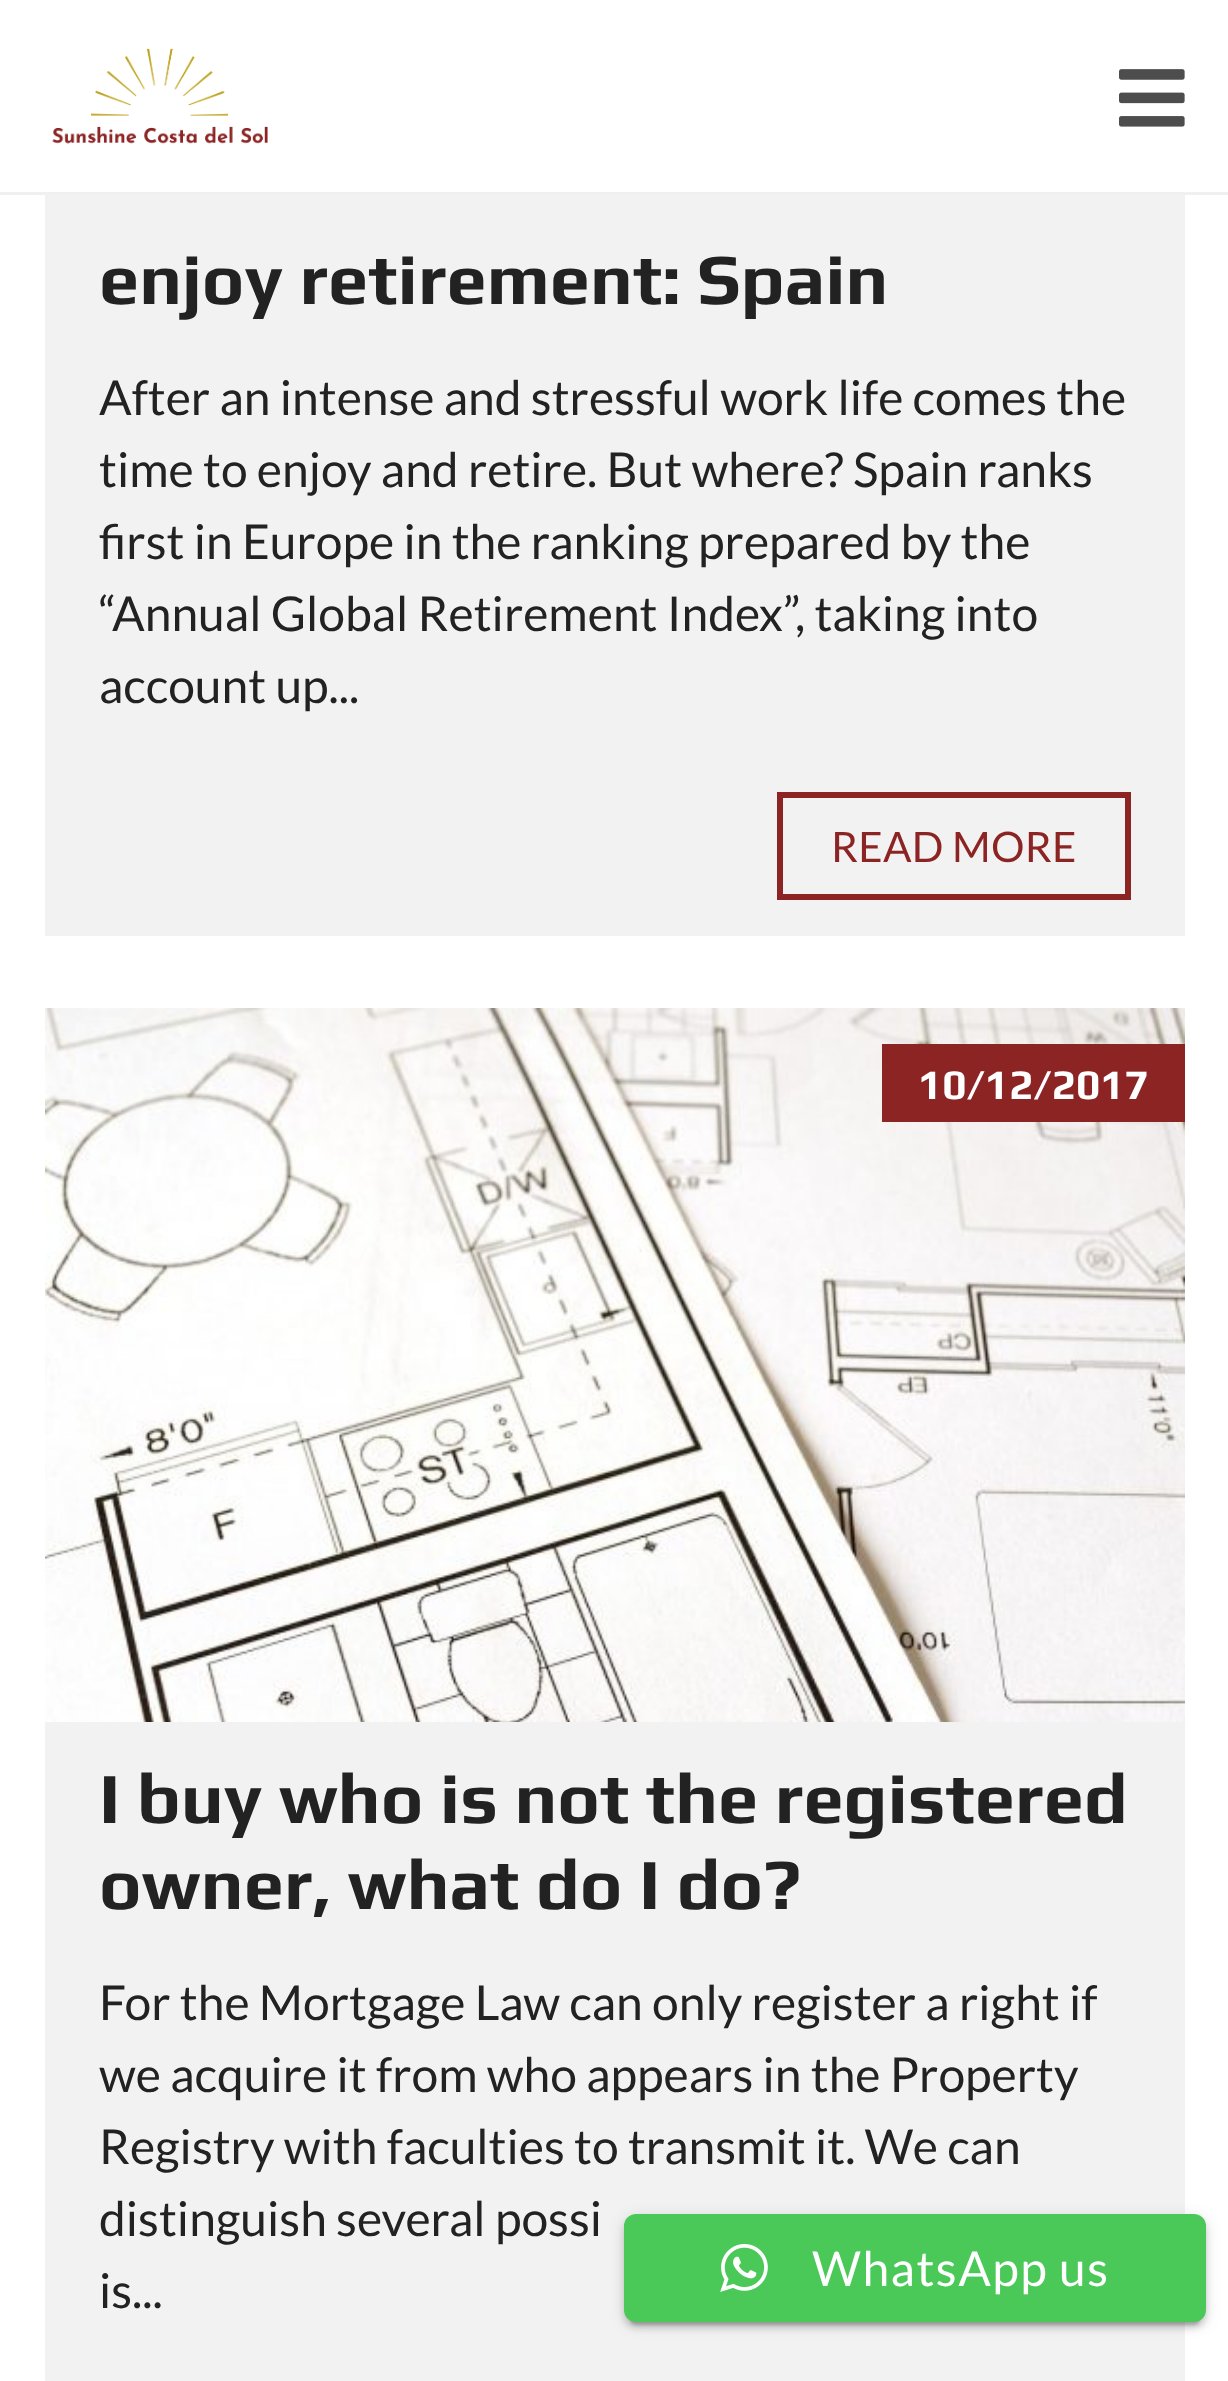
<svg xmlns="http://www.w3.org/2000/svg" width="1228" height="2381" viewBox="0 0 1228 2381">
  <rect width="100%" height="100%" fill="#fff"/>
  <image x="52" y="48" width="216" height="96" href="img/1.png"/>
  <image x="1119" y="69" width="66" height="58" href="img/2.png"/>
  <path d="M0 192h1228v3H0z" fill="#f0f0f0"/>
  <path d="M45 195h1140v741H45z" fill="#f2f2f2"/>
  <path d="M780 795h348v102H780z" fill="none" stroke="#8d2424" stroke-width="6"/>
  <path d="M45 1722h1140v659H45z" fill="#f2f2f2"/>
  <image x="45" y="1008" width="1140" height="714" href="img/3.png"/>
  <path d="M882 1044h303v78H882z" fill="#8d2424"/>
  <rect x="630" y="2229" width="570" height="96" rx="6" fill="#00000033" filter="blur(1.5px)"/>
  <rect x="624" y="2217" width="582" height="108" rx="12" fill="#0000001f" filter="blur(7.5px)"/>
  <rect x="624" y="2220" width="582" height="108" rx="12" fill="#00000024" filter="blur(3px)"/>
  <rect x="624" y="2214" width="582" height="108" rx="12" fill="#4ac959"/>
  <image x="720" y="2244" width="48" height="48" href="img/4.png"/>
  <text x="99" y="304" font-family="Play" font-size="72" font-weight="bold" fill="#222">enjoy retirement: Spain</text>
  <g font-family="Lato" font-size="48" fill="#222">
    <text x="99" y="415">After an intense and stressful work life comes the</text>
    <text x="99" y="487">time to enjoy and retire. But where? Spain ranks</text>
    <text x="99" y="559">first in Europe in the ranking prepared by the</text>
    <text x="99" y="631">“Annual Global Retirement Index”, taking into</text>
    <text x="99" y="703">account up...</text>
  </g>
  <text x="831" y="862" font-family="Lato" font-size="42" letter-spacing="0.25" fill="#8d2424">READ MORE</text>
  <text x="918" y="1099" font-family="Play" font-size="42" font-weight="bold" fill="#fff">10/12/2017</text>
  <g font-family="Play" font-size="72" font-weight="bold" fill="#222">
    <text x="99" y="1823">I buy who is not the registered</text>
    <text x="99" y="1909">owner, what do I do?</text>
  </g>
  <g font-family="Lato" font-size="48" fill="#222">
    <text x="99" y="2020">For the Mortgage Law can only register a right if</text>
    <text x="99" y="2092">we acquire it from who appears in the Property</text>
    <text x="99" y="2164">Registry with faculties to transmit it. We can</text>
    <text x="99" y="2236">distinguish several possi</text>
    <text x="99" y="2308">is...</text>
  </g>
  <text x="812" y="2286" font-family="Lato" font-size="48" letter-spacing="1.5" fill="#fff">WhatsApp us</text>
</svg>
